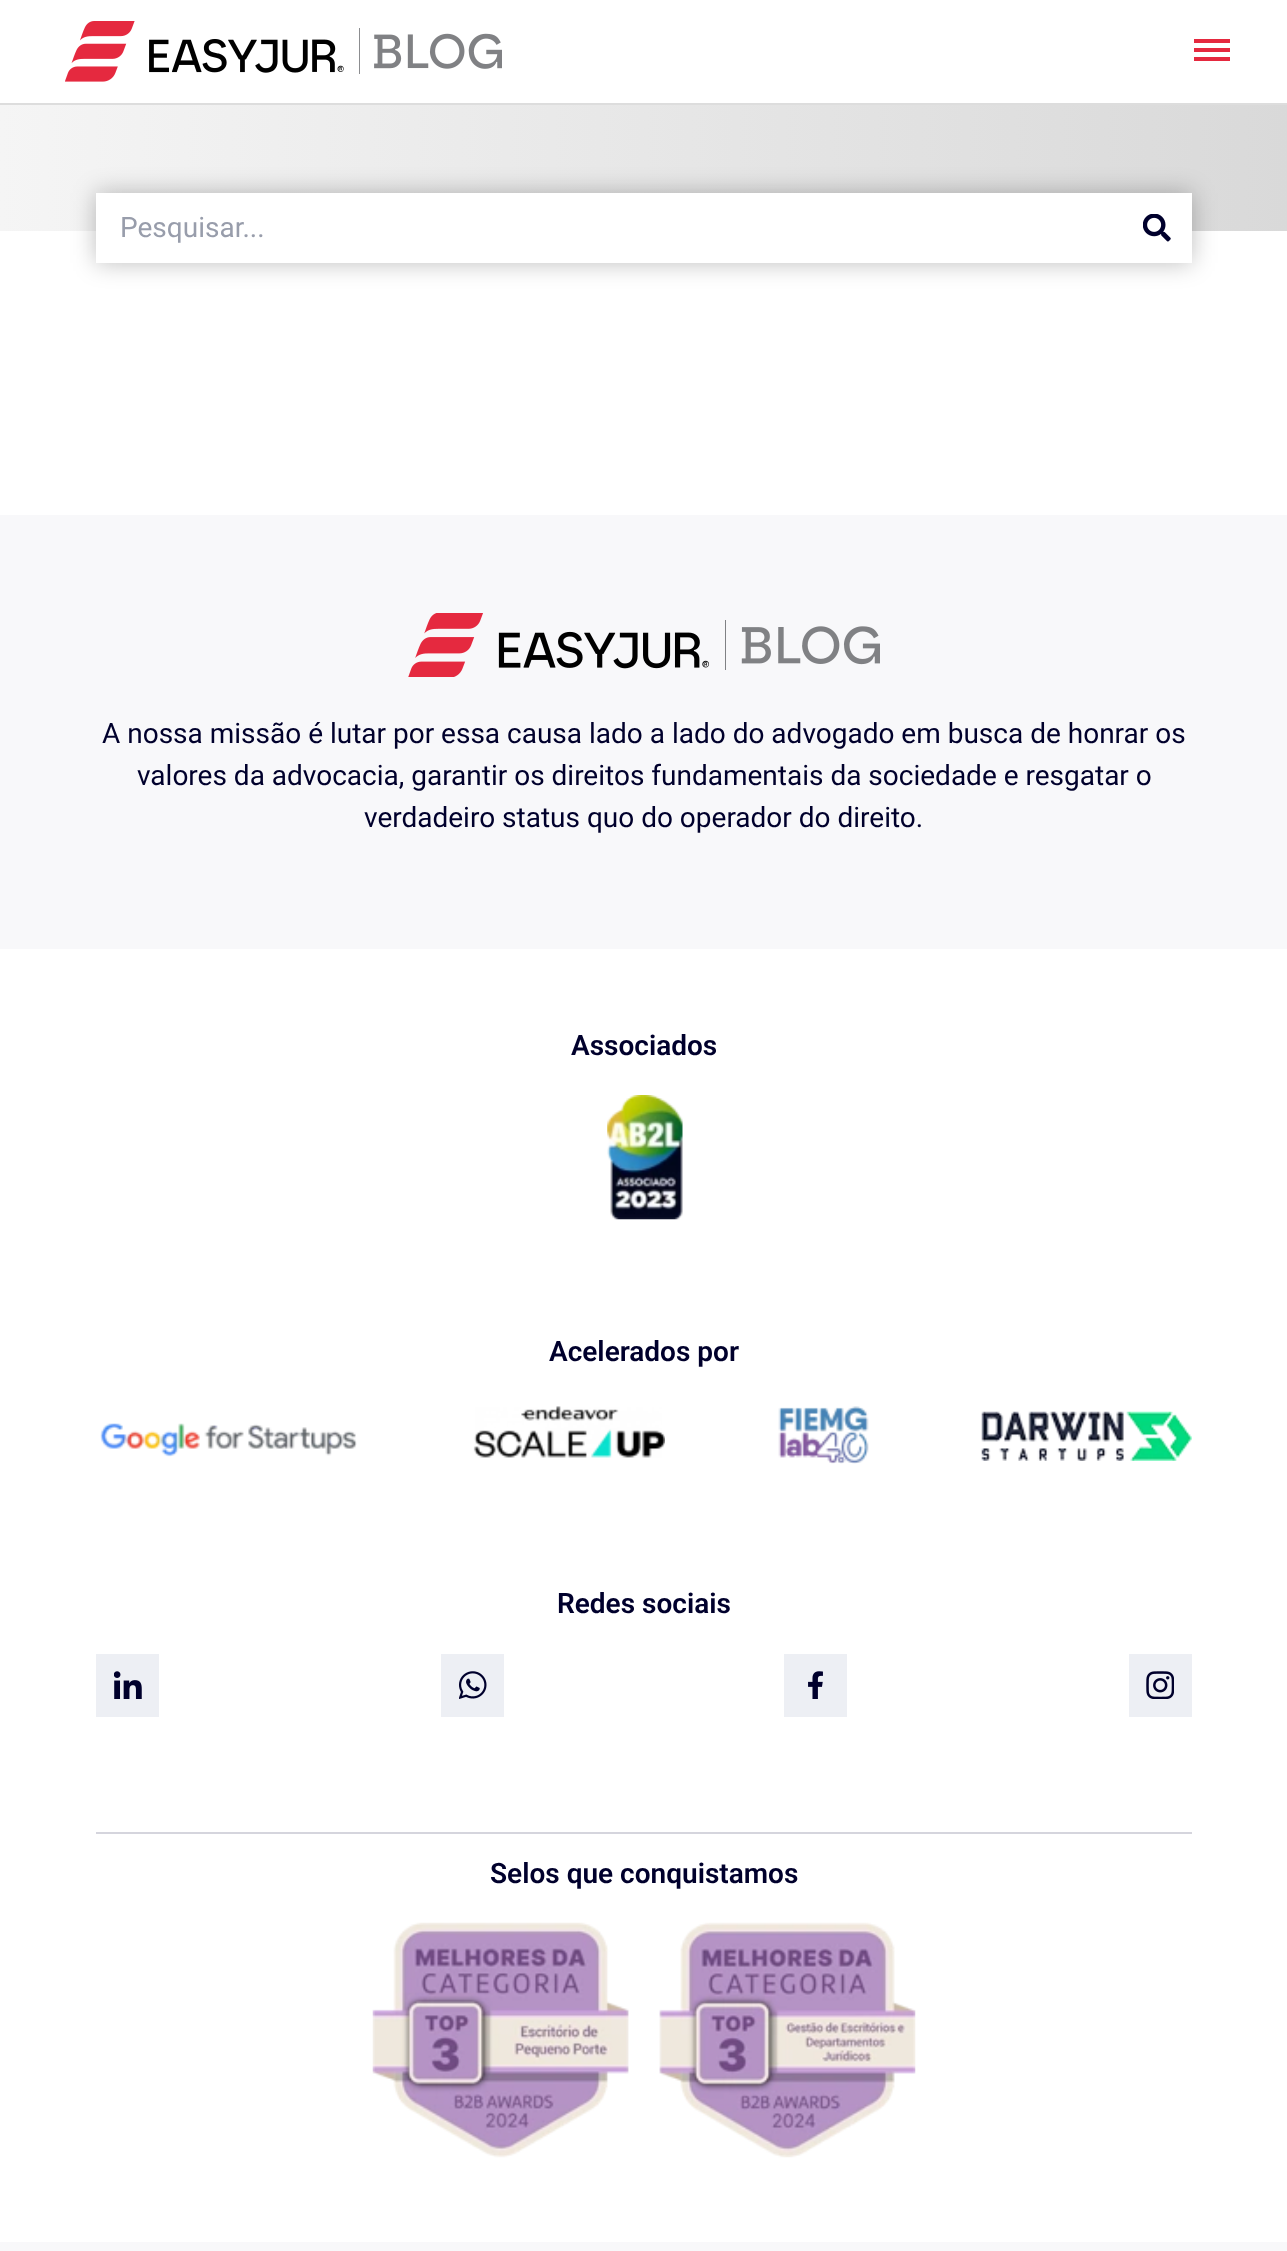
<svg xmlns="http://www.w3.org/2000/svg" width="1287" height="2251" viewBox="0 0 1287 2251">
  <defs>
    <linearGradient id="g1" gradientUnits="userSpaceOnUse" x1="0" y1="58" x2="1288" y2="58"><stop offset="0" stop-color="#f5f5f5"/><stop offset="1" stop-color="#d9d9d9"/></linearGradient>
  </defs>
  <rect width="100%" height="100%" fill="#fff"/>
  <path d="M0 103h1287v2H0z" fill="#ddd"/>
  <image x="65" y="21" width="437" height="61" href="img/1.png"/>
  <path d="M1194 39h36v4H1194z" fill="#e5293f"/>
  <path d="M1194 48h36v4H1194z" fill="#e5293f"/>
  <path d="M1194 57h36v4H1194z" fill="#e5293f"/>
  <path d="M0 105h1287v126H0z" fill="url(#g1)"/>
  <path d="M96 193h1096v70H96z" fill="#00000042" filter="blur(12px)"/>
  <path d="M96 193h1096v70H96z" fill="#fff"/>
  <image x="1143" y="214" width="28" height="28" href="img/2.png"/>
  <path d="M0 515h1287v434H0z" fill="#f8f8fa"/>
  <image x="408" y="613" width="472" height="64" href="img/3.png"/>
  <image x="607" y="1095" width="76" height="125" href="img/4.png"/>
  <image x="100" y="1423" width="257" height="34" href="img/5.png"/>
  <image x="473" y="1406" width="192" height="52" href="img/6.png"/>
  <image x="778" y="1406" width="91" height="58" href="img/7.png"/>
  <image x="981" y="1411" width="211" height="50" href="img/8.png"/>
  <path d="M96 1654h63v63H96z" fill="#edeff4"/>
  <image x="114" y="1671" width="28" height="28" href="img/9.png"/>
  <path d="M441 1654h63v63H441z" fill="#edeff4"/>
  <image x="459" y="1671" width="28" height="28" href="img/10.png"/>
  <path d="M784 1654h63v63H784z" fill="#edeff4"/>
  <image x="808" y="1671" width="15" height="28" href="img/11.png"/>
  <path d="M1129 1654h63v63H1129z" fill="#edeff4"/>
  <image x="1146" y="1671" width="28" height="28" href="img/12.png"/>
  <path d="M96 1832h1096v2H96z" fill="#d5d5dd"/>
  <image x="372" y="1922" width="544" height="236" href="img/13.png"/>
  <path d="M0 2242h1287v9H0z" fill="#f8f8fa"/>
  <text x="120" y="237" font-family="Roboto" font-size="28" fill="#989dab">Pesquisar...</text>
  <g font-family="Roboto" font-size="28" fill="#00002c">
    <text x="102" y="743">A nossa missão é lutar por essa causa lado a lado do advogado em busca de honrar os</text>
    <text x="137" y="785">valores da advocacia, garantir os direitos fundamentais da sociedade e resgatar o</text>
    <text x="364" y="827">verdadeiro status quo do operador do direito.</text>
  </g>
  <g font-family="Roboto" font-size="28" font-weight="600" fill="#00002c">
    <text x="571" y="1055">Associados</text>
    <text x="549" y="1361">Acelerados por</text>
    <text x="557" y="1613">Redes sociais</text>
    <text x="490" y="1883">Selos que conquistamos</text>
  </g>
</svg>
